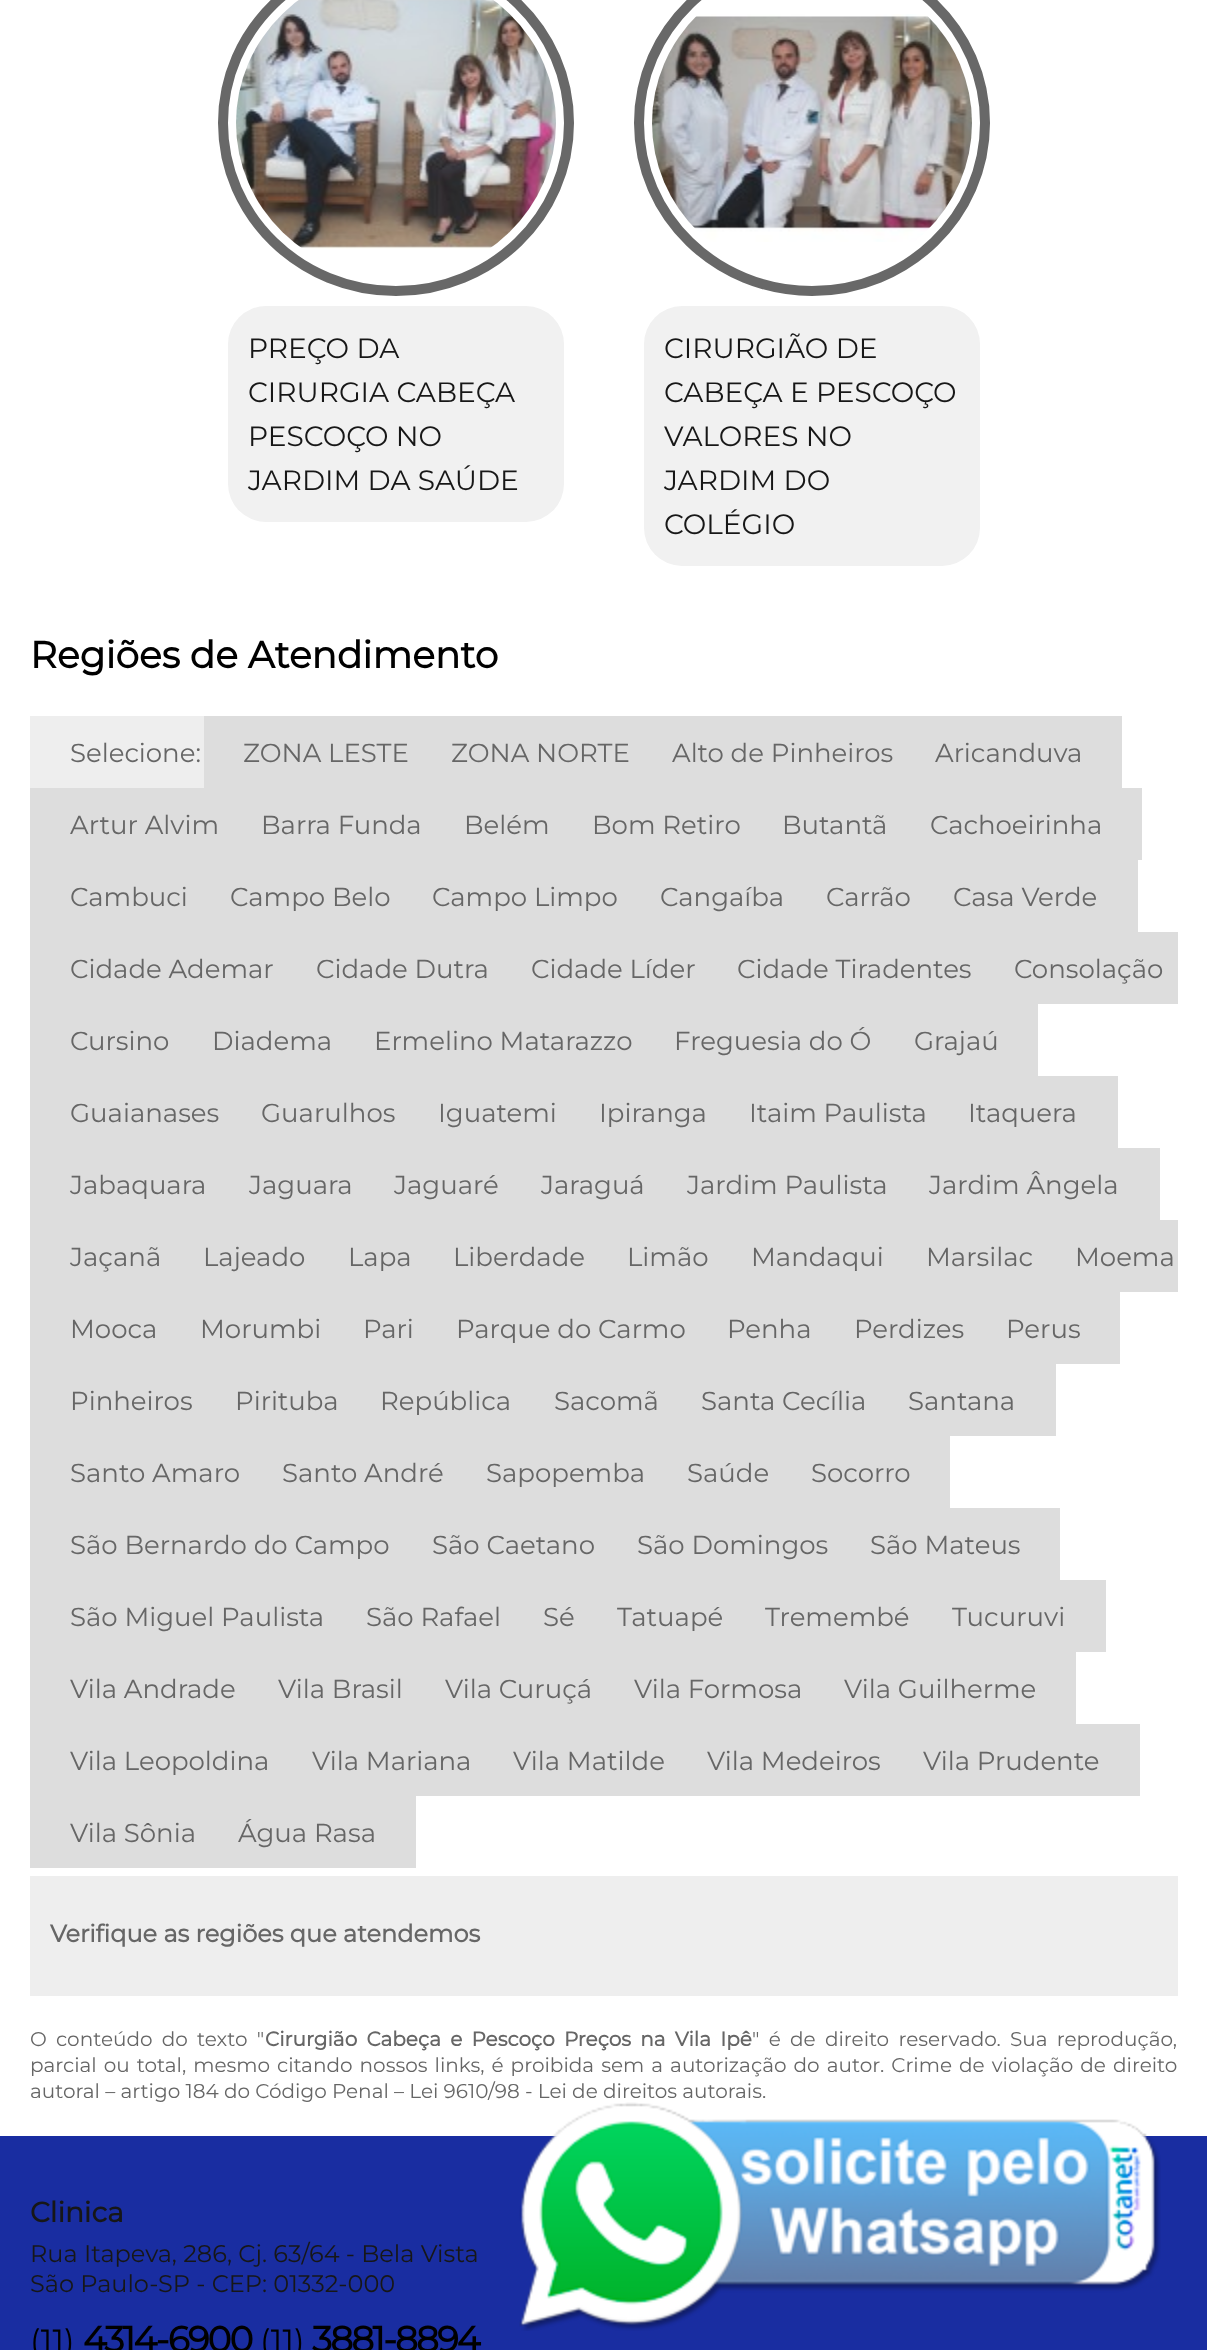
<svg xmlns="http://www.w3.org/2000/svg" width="1207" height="2350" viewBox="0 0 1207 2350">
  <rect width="100%" height="100%" fill="#fff"/>
  <path d="M396-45C491.5-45 569 30 569 123C569 216 491.5 291 396 291C300.5 291 223 216 223 123C223 30 300.5-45 396-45Z" fill="none" stroke="#686868" stroke-width="10"/>
  <image x="236" y="0" width="320" height="249" href="img/1.png"/>
  <rect x="228" y="306" width="336" height="216" rx="38" fill="#f1f1f1"/>
  <path d="M812-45C907.5-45 985 30 985 123C985 216 907.5 291 812 291C716.5 291 639 216 639 123C639 30 716.5-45 812-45Z" fill="none" stroke="#686868" stroke-width="10"/>
  <image x="652" y="14" width="320" height="228" href="img/2.png"/>
  <rect x="644" y="306" width="336" height="260" rx="38" fill="#f1f1f1"/>
  <path d="M30 716h174v72H30z" fill="#eee"/>
  <path d="M204 716h918v72H204z" fill="#ddd"/>
  <path d="M30 788h1112v72H30z" fill="#ddd"/>
  <path d="M30 860h1108v72H30z" fill="#ddd"/>
  <path d="M30 932h1148v72H30z" fill="#ddd"/>
  <path d="M30 1004h1008v72H30z" fill="#ddd"/>
  <path d="M30 1076h1088v72H30z" fill="#ddd"/>
  <path d="M30 1148h1130v72H30z" fill="#ddd"/>
  <path d="M30 1220h1148v72H30z" fill="#ddd"/>
  <path d="M30 1292h1090v72H30z" fill="#ddd"/>
  <path d="M30 1364h1026v72H30z" fill="#ddd"/>
  <path d="M30 1436h920v72H30z" fill="#ddd"/>
  <path d="M30 1508h1030v72H30z" fill="#ddd"/>
  <path d="M30 1580h1076v72H30z" fill="#ddd"/>
  <path d="M30 1652h1046v72H30z" fill="#ddd"/>
  <path d="M30 1724h1110v72H30z" fill="#ddd"/>
  <path d="M30 1796h386v72H30z" fill="#ddd"/>
  <path d="M30 1876h1148v120H30z" fill="#eee"/>
  <path d="M0 2136h1207v214H0z" fill="#192da1"/>
  <image x="519" y="2102" width="642" height="229" href="img/3.png"/>
  <g font-family="Montserrat" font-size="28" font-weight="100" fill="#171717">
    <text x="248" y="358">PREÇO DA</text>
    <text x="248" y="402">CIRURGIA CABEÇA</text>
    <text x="248" y="446">PESCOÇO NO</text>
    <text x="248" y="490">JARDIM DA SAÚDE</text>
    <text x="664" y="358">CIRURGIÃO DE</text>
    <text x="664" y="402">CABEÇA E PESCOÇO</text>
    <text x="664" y="446">VALORES NO</text>
    <text x="664" y="490">JARDIM DO</text>
    <text x="664" y="534">COLÉGIO</text>
  </g>
  <text x="30" y="668" font-family="Montserrat" font-size="37.5" font-weight="bold" fill="#000">Regiões de Atendimento</text>
  <g font-family="Montserrat" font-size="26" font-weight="100" fill="#666">
    <text x="70" y="762">Selecione:</text>
    <text x="243" y="762">ZONA LESTE</text>
    <text x="451" y="762">ZONA NORTE</text>
    <text x="672" y="762">Alto de Pinheiros</text>
    <text x="935" y="762">Aricanduva</text>
    <text x="70" y="834">Artur Alvim</text>
    <text x="261" y="834">Barra Funda</text>
    <text x="464" y="834">Belém</text>
    <text x="592" y="834">Bom Retiro</text>
    <text x="782" y="834">Butantã</text>
    <text x="930" y="834">Cachoeirinha</text>
    <text x="70" y="906">Cambuci</text>
    <text x="230" y="906">Campo Belo</text>
    <text x="432" y="906">Campo Limpo</text>
    <text x="660" y="906">Cangaíba</text>
    <text x="826" y="906">Carrão</text>
    <text x="953" y="906">Casa Verde</text>
    <text x="70" y="978">Cidade Ademar</text>
    <text x="316" y="978">Cidade Dutra</text>
    <text x="531" y="978">Cidade Líder</text>
    <text x="737" y="978">Cidade Tiradentes</text>
    <text x="1014" y="978">Consolação</text>
    <text x="70" y="1050">Cursino</text>
    <text x="212" y="1050">Diadema</text>
    <text x="374" y="1050">Ermelino Matarazzo</text>
    <text x="674" y="1050">Freguesia do Ó</text>
    <text x="914" y="1050">Grajaú</text>
    <text x="70" y="1122">Guaianases</text>
    <text x="261" y="1122">Guarulhos</text>
    <text x="438" y="1122">Iguatemi</text>
    <text x="599" y="1122">Ipiranga</text>
    <text x="749" y="1122">Itaim Paulista</text>
    <text x="968" y="1122">Itaquera</text>
    <text x="70" y="1194">Jabaquara</text>
    <text x="249" y="1194">Jaguara</text>
    <text x="394" y="1194">Jaguaré</text>
    <text x="541" y="1194">Jaraguá</text>
    <text x="687" y="1194">Jardim Paulista</text>
    <text x="929" y="1194">Jardim Ângela</text>
    <text x="70" y="1266">Jaçanã</text>
    <text x="203" y="1266">Lajeado</text>
    <text x="348" y="1266">Lapa</text>
    <text x="453" y="1266">Liberdade</text>
    <text x="627" y="1266">Limão</text>
    <text x="751" y="1266">Mandaqui</text>
    <text x="926" y="1266">Marsilac</text>
    <text x="1075" y="1266">Moema</text>
    <text x="70" y="1338">Mooca</text>
    <text x="200" y="1338">Morumbi</text>
    <text x="363" y="1338">Pari</text>
    <text x="456" y="1338">Parque do Carmo</text>
    <text x="727" y="1338">Penha</text>
    <text x="854" y="1338">Perdizes</text>
    <text x="1006" y="1338">Perus</text>
    <text x="70" y="1410">Pinheiros</text>
    <text x="235" y="1410">Pirituba</text>
    <text x="380" y="1410">República</text>
    <text x="554" y="1410">Sacomã</text>
    <text x="701" y="1410">Santa Cecília</text>
    <text x="908" y="1410">Santana</text>
    <text x="70" y="1482">Santo Amaro</text>
    <text x="282" y="1482">Santo André</text>
    <text x="486" y="1482">Sapopemba</text>
    <text x="687" y="1482">Saúde</text>
    <text x="811" y="1482">Socorro</text>
    <text x="70" y="1554">São Bernardo do Campo</text>
    <text x="432" y="1554">São Caetano</text>
    <text x="637" y="1554">São Domingos</text>
    <text x="870" y="1554">São Mateus</text>
    <text x="70" y="1626">São Miguel Paulista</text>
    <text x="366" y="1626">São Rafael</text>
    <text x="543" y="1626">Sé</text>
    <text x="617" y="1626">Tatuapé</text>
    <text x="765" y="1626">Tremembé</text>
    <text x="952" y="1626">Tucuruvi</text>
    <text x="70" y="1698">Vila Andrade</text>
    <text x="278" y="1698">Vila Brasil</text>
    <text x="445" y="1698">Vila Curuçá</text>
    <text x="634" y="1698">Vila Formosa</text>
    <text x="844" y="1698">Vila Guilherme</text>
    <text x="70" y="1770">Vila Leopoldina</text>
    <text x="312" y="1770">Vila Mariana</text>
    <text x="513" y="1770">Vila Matilde</text>
    <text x="707" y="1770">Vila Medeiros</text>
    <text x="923" y="1770">Vila Prudente</text>
    <text x="70" y="1842">Vila Sônia</text>
    <text x="238" y="1842">Água Rasa</text>
  </g>
  <text x="50" y="1942" font-family="Montserrat" font-size="24" font-weight="bold" fill="#666">Verifique as regiões que atendemos</text>
  <text x="30" y="2046" word-spacing="4" font-family="Montserrat" font-size="20" font-weight="100" fill="#666">O conteúdo do texto "</text>
  <text x="265" y="2046" word-spacing="4" font-family="Montserrat" font-size="20" font-weight="bold" fill="#666">Cirurgião Cabeça e Pescoço Preços na Vila Ipê</text>
  <g font-family="Montserrat" font-size="20" font-weight="100" fill="#666">
    <text x="752" y="2046" word-spacing="4">" é de direito reservado. Sua reprodução,</text>
    <text x="30" y="2072" word-spacing="1.8">parcial ou total, mesmo citando nossos links, é proibida sem a autorização do autor. Crime de violação de direito</text>
    <text x="30" y="2098">autoral – artigo 184 do Código Penal – Lei 9610/98 - Lei de direitos autorais.</text>
  </g>
  <text x="30" y="2222" font-family="Montserrat" font-size="28" font-weight="bold" fill="#171717">Clinica</text>
  <g font-family="Montserrat" font-size="24" font-weight="100" fill="#171717">
    <text x="30" y="2262">Rua Itapeva, 286, Cj. 63/64 - Bela Vista</text>
    <text x="30" y="2292">São Paulo-SP - CEP: 01332-000</text>
  </g>
  <text x="30" y="2352" font-family="Montserrat" font-size="32" font-weight="100" fill="#000">(11)</text>
  <text x="83" y="2352" font-family="Montserrat" font-size="36" font-weight="bold" letter-spacing="-2" fill="#000">4314-6900</text>
  <text x="260" y="2352" font-family="Montserrat" font-size="32" font-weight="100" fill="#000">(11)</text>
  <text x="312" y="2352" font-family="Montserrat" font-size="36" font-weight="bold" letter-spacing="-2" fill="#000">3881-8894</text>
</svg>
